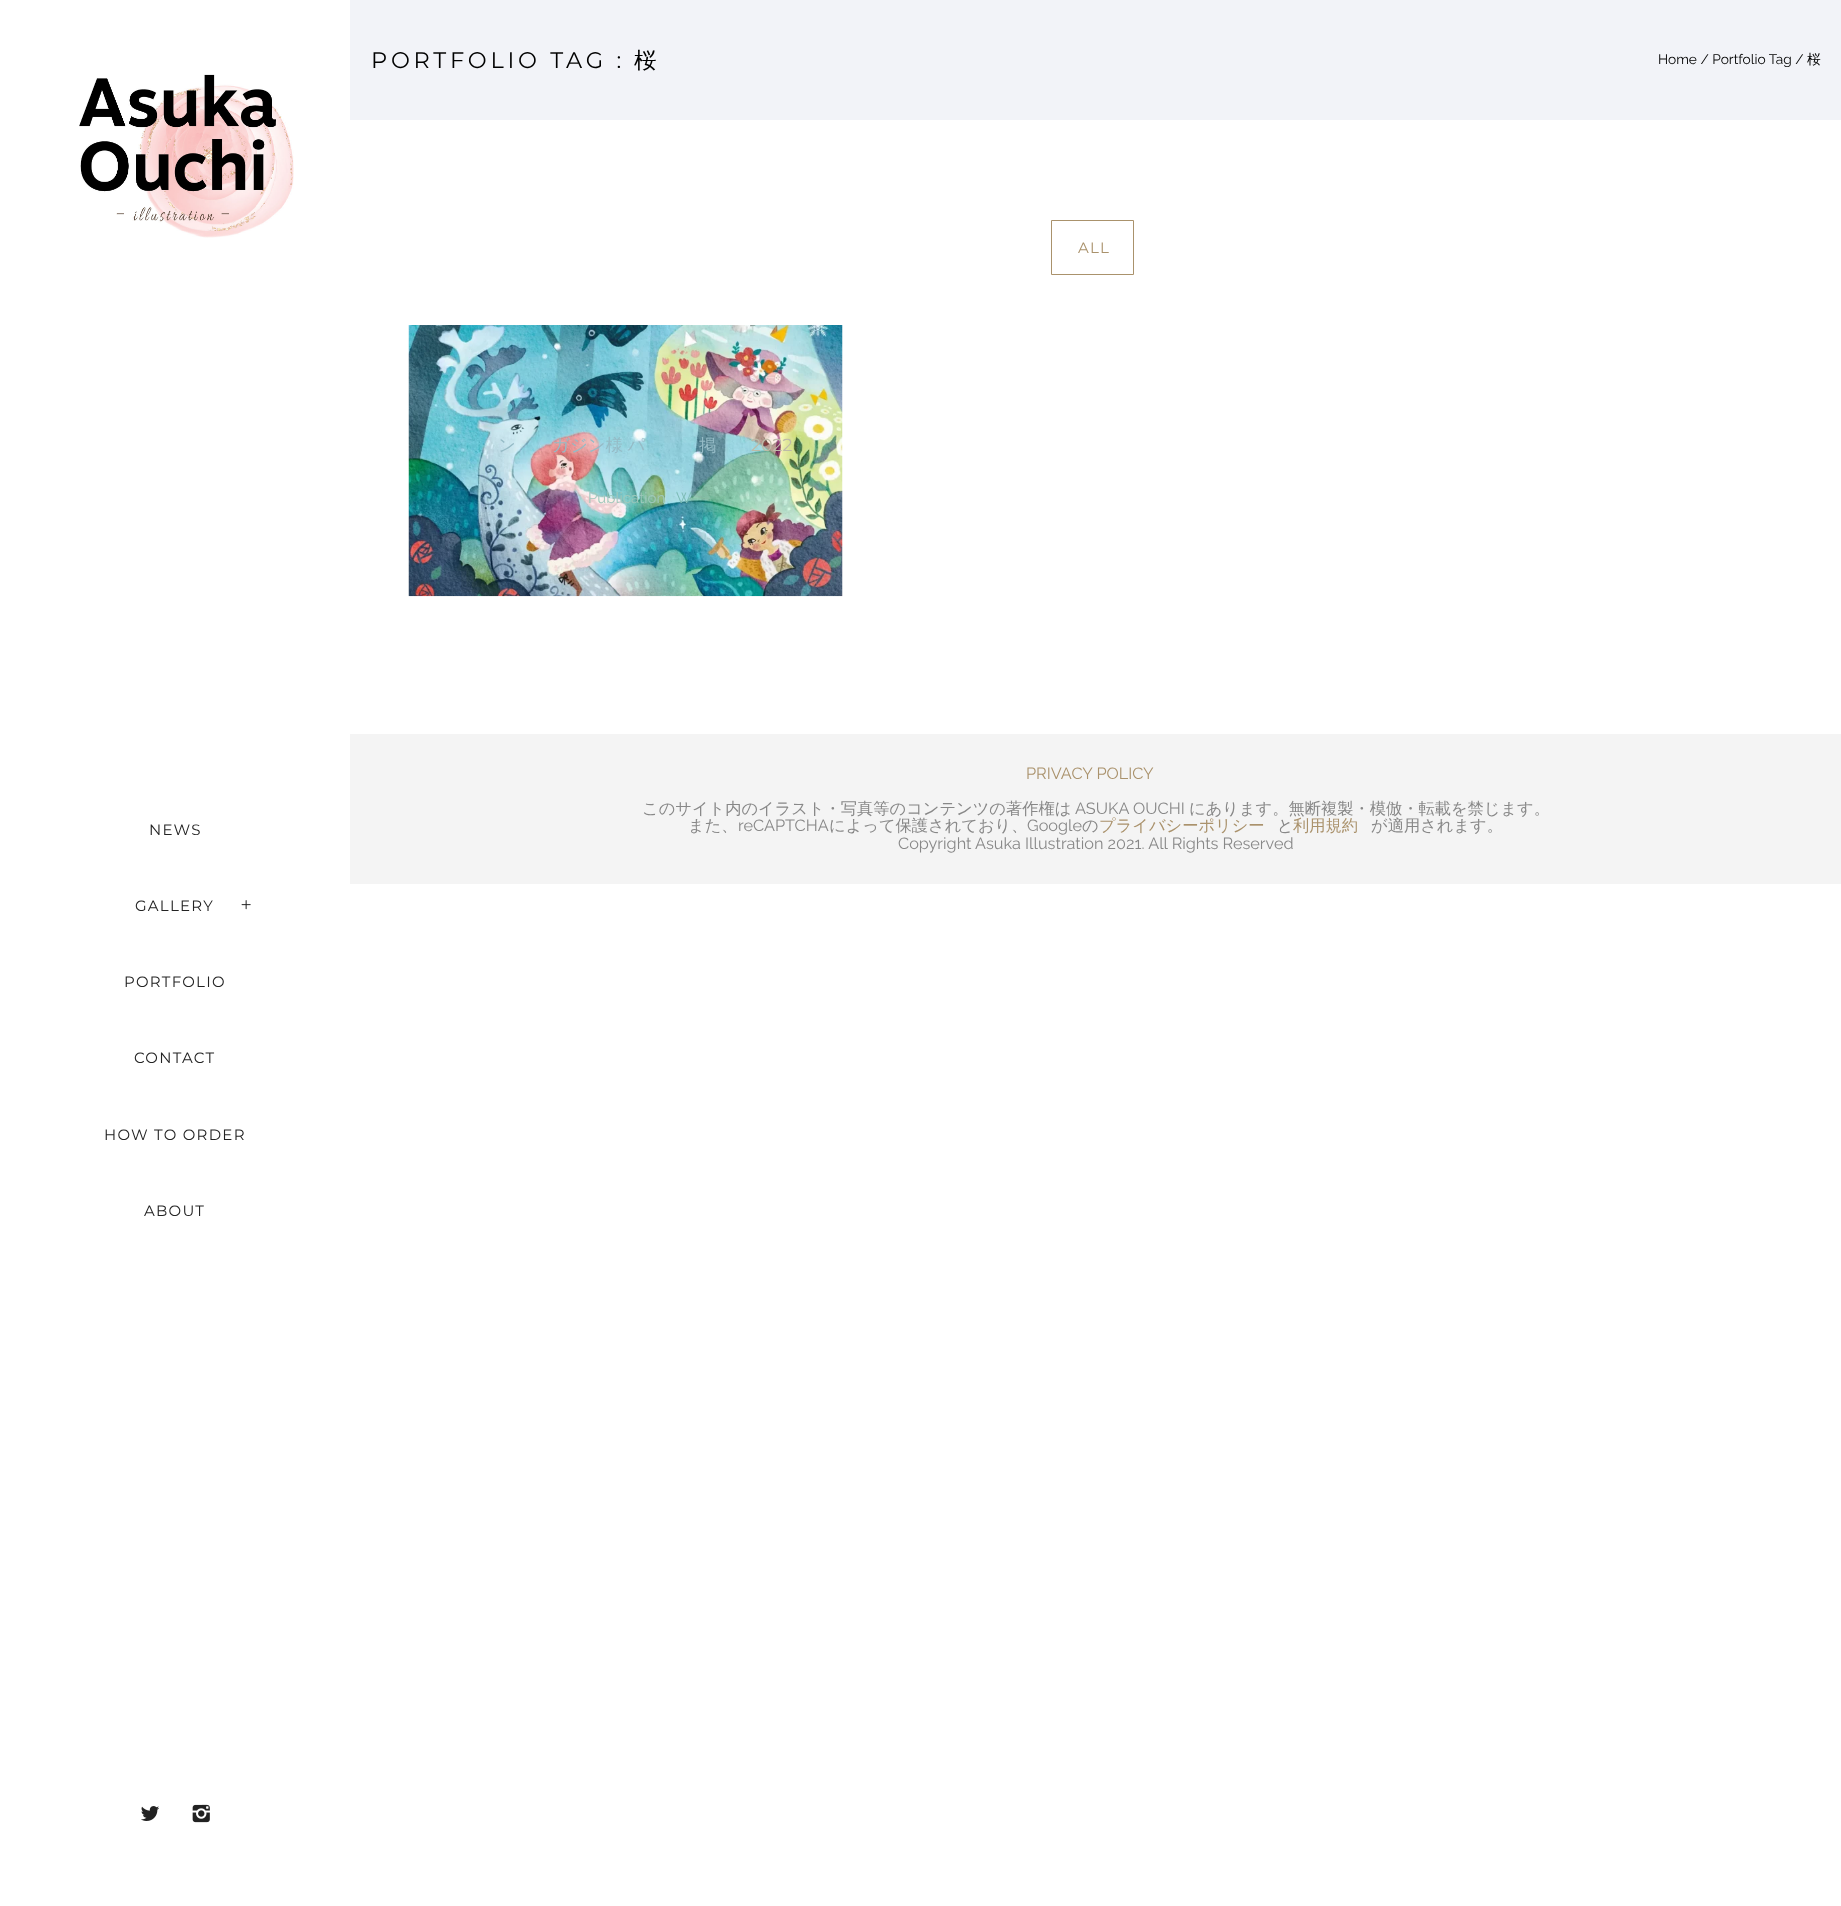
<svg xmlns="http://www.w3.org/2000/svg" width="1841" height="1906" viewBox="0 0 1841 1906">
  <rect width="100%" height="100%" fill="#fff"/>
  <path d="M350 0h1491v120H350z" fill="#f2f3f8"/>
  <path d="M1051.5 220.5h82v54H1051.5z" fill="none" stroke="#aa926c"/>
  <image x="408" y="325" width="435" height="272" href="img/1.png"/>
  <path d="M350 734h1491v150H350z" fill="#f4f4f4"/>
  <image x="79" y="74" width="215" height="164" href="img/2.png"/>
  <image x="241" y="900" width="10" height="10" href="img/3.png"/>
  <image x="141" y="1806" width="18" height="15" href="img/4.png"/>
  <image x="192" y="1804" width="18" height="19" href="img/5.png"/>
  <text x="371" y="68" font-family="Montserrat" font-size="22.5" letter-spacing="3.75" fill="#000">PORTFOLIO TAG :</text>
  <text x="634" y="68" font-family="WenQuanYi Zen Hei" font-size="22.5" font-weight="500" letter-spacing="3.75" fill="#000">桜</text>
  <text x="1658" y="64" font-family="Raleway" font-size="13.75" fill="#000">Home / Portfolio Tag /</text>
  <text x="1807" y="64" font-family="WenQuanYi Zen Hei" font-size="13.75" font-weight="500" fill="#000">桜</text>
  <text x="1078" y="253" font-family="Montserrat" font-size="15" letter-spacing="1.25" fill="#aa926c">ALL</text>
  <g font-family="WenQuanYi Zen Hei" font-size="17.5" font-weight="500" fill="#95bbc6">
    <text x="498" y="451" word-spacing="-1">ン</text>
    <text x="552" y="451" word-spacing="-1">ガジン様 パ</text>
    <text x="699" y="451" word-spacing="-1">掲</text>
  </g>
  <text x="751" y="451" font-family="Montserrat" font-size="17.5" fill="#bebba8">2022</text>
  <text x="588" y="503" font-family="Raleway" font-size="15" fill="#9fc8bb">Publication</text>
  <text x="676" y="503" font-family="Raleway" font-size="15" fill="#7ebcb6">W</text>
  <text x="1026" y="779" font-family="Raleway" font-size="16.25" fill="#aa926c">PRIVACY POLICY</text>
  <text x="642" y="814" font-family="WenQuanYi Zen Hei" font-size="16.25" font-weight="500" fill="#888">このサイト内のイラスト・写真等のコンテンツの著作権は</text>
  <text x="1075" y="814" font-family="Raleway" font-size="16.25" fill="#888">ASUKA OUCHI</text>
  <g font-family="WenQuanYi Zen Hei" font-size="16.25" font-weight="500" fill="#888">
    <text x="1189" y="814">にあります。無断複製・模倣・転載を禁じます。</text>
    <text x="688" y="831">また、</text>
  </g>
  <text x="738" y="831" font-family="Raleway" font-size="16.25" fill="#888">reCAPTCHA</text>
  <text x="829" y="831" font-family="WenQuanYi Zen Hei" font-size="16.25" font-weight="500" fill="#888">によって保護されており、</text>
  <text x="1027" y="831" font-family="Raleway" font-size="16.25" fill="#888">Google</text>
  <text x="1082" y="831" font-family="WenQuanYi Zen Hei" font-size="16.25" font-weight="500" fill="#888">の</text>
  <text x="1099" y="831" font-family="WenQuanYi Zen Hei" font-size="16.25" font-weight="500" fill="#aa926c">プライバシーポリシー</text>
  <text x="1277" y="831" font-family="WenQuanYi Zen Hei" font-size="16.25" font-weight="500" fill="#888">と</text>
  <text x="1293" y="831" font-family="WenQuanYi Zen Hei" font-size="16.25" font-weight="500" fill="#aa926c">利用規約</text>
  <text x="1371" y="831" font-family="WenQuanYi Zen Hei" font-size="16.25" font-weight="500" fill="#888">が適用されます。</text>
  <text x="898" y="849" font-family="Raleway" font-size="16.25" fill="#888">Copyright Asuka Illustration 2021. All Rights Reserved</text>
  <g font-family="Montserrat" font-size="15" letter-spacing="1.25" fill="#232323">
    <text x="149" y="835">NEWS</text>
    <text x="135" y="911">GALLERY</text>
    <text x="124" y="987">PORTFOLIO</text>
    <text x="134" y="1063">CONTACT</text>
    <text x="104" y="1140">HOW TO ORDER</text>
    <text x="144" y="1216">ABOUT</text>
  </g>
</svg>
